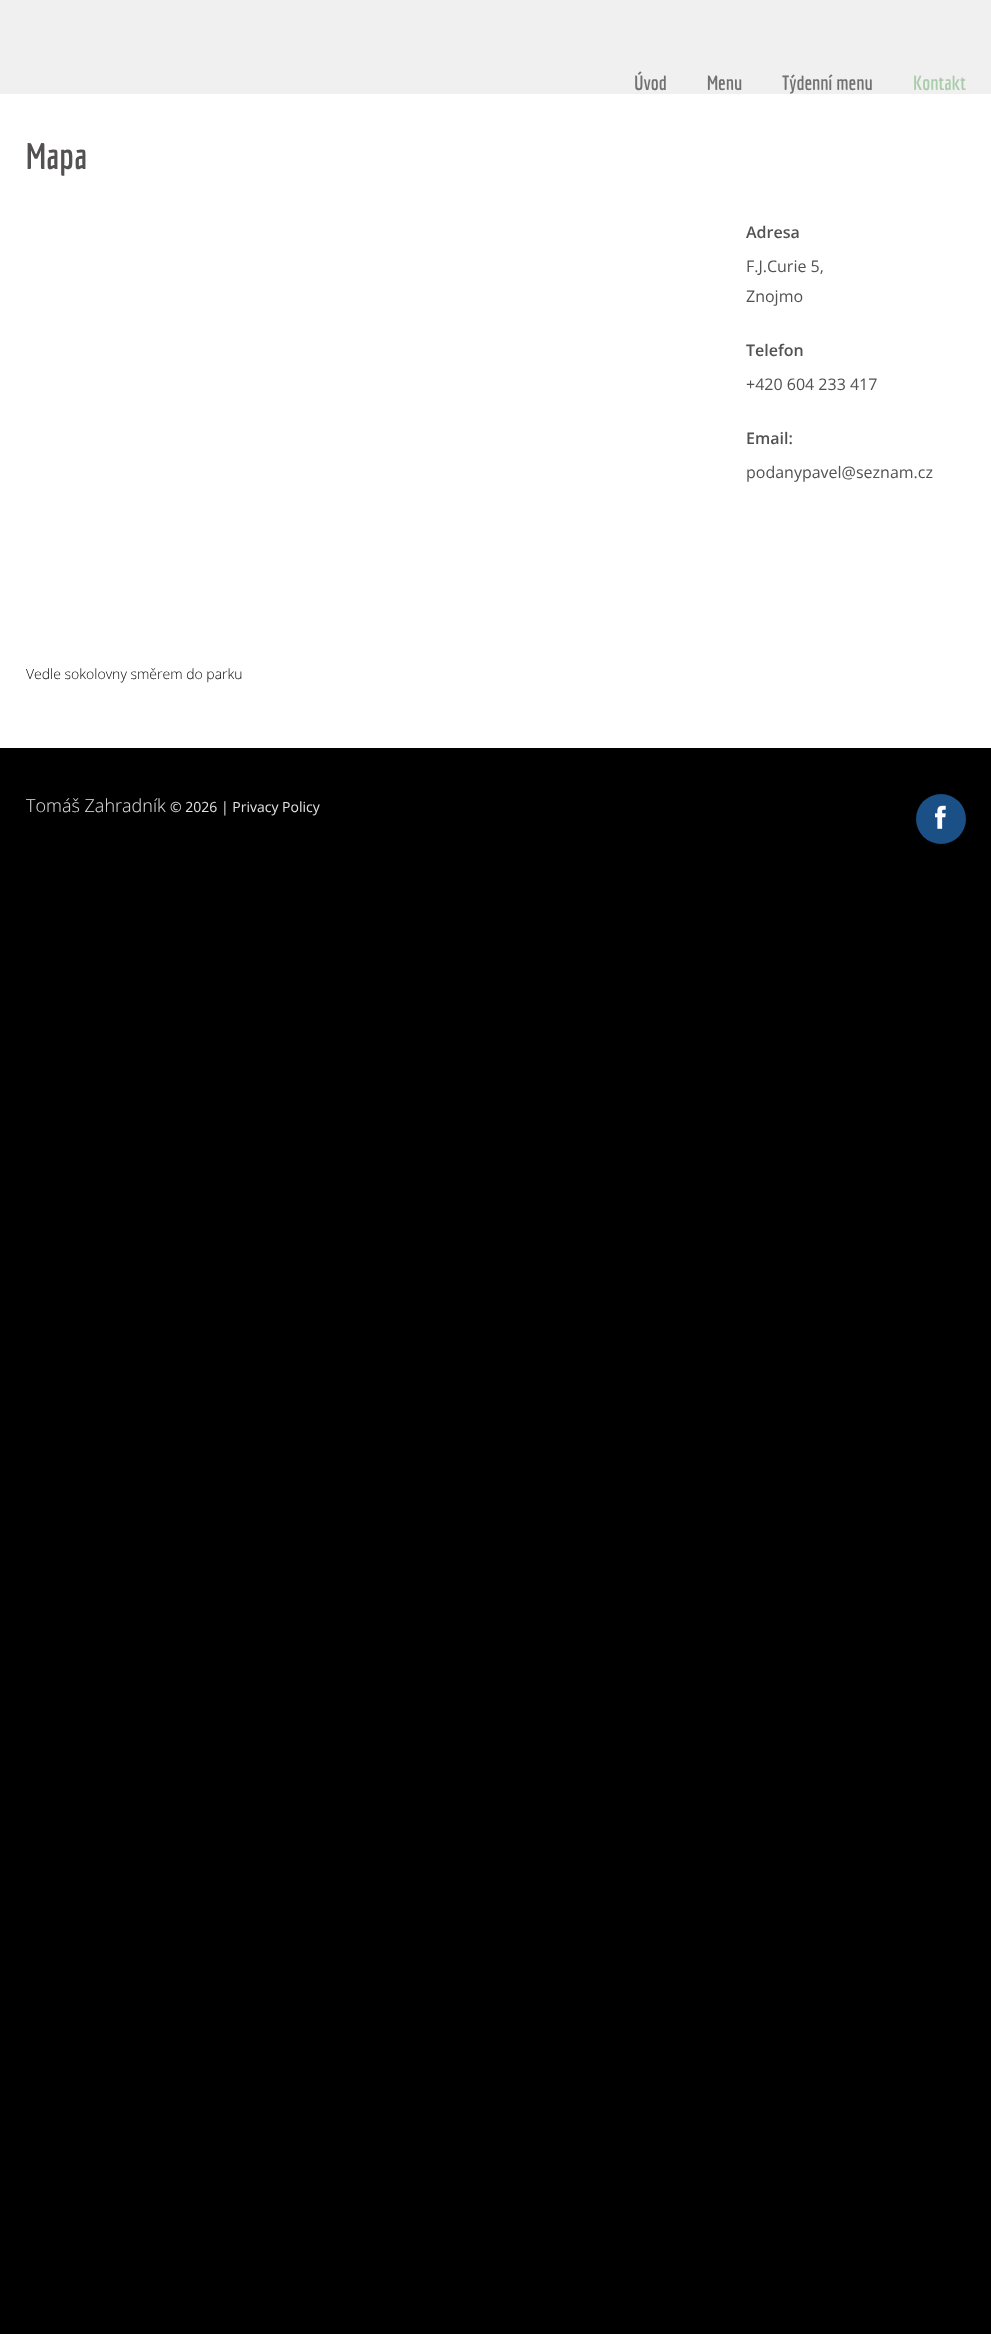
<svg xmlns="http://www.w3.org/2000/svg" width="991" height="2334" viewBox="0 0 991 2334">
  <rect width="100%" height="100%" fill="#000"/>
  <path d="M0 0h991v94H0z" fill="#f1f0f1"/>
  <path d="M0 94h991v654H0z" fill="#fff"/>
  <circle cx="941" cy="819" r="25" fill="#1a5086"/>
  <image x="935" y="805" width="11" height="24" href="img/1.png"/>
  <g font-family="Economica" font-size="20" font-weight="bold" fill="#727171">
    <text x="634" y="90">Úvod</text>
    <text x="707" y="90">Menu</text>
    <text x="782" y="90">Týdenní menu</text>
  </g>
  <text x="913" y="90" font-family="Economica" font-size="20" font-weight="bold" fill="#aca">Kontakt</text>
  <text x="26" y="169" font-family="Economica" font-size="36" font-weight="bold" fill="#535151">Mapa</text>
  <text x="746" y="238" font-family="Open Sans" font-size="16" font-weight="600" fill="#535151">Adresa</text>
  <g font-family="Open Sans" font-size="16" fill="#535151">
    <text x="746" y="272">F.J.Curie 5,</text>
    <text x="746" y="302">Znojmo</text>
  </g>
  <text x="746" y="356" font-family="Open Sans" font-size="16" font-weight="600" fill="#535151">Telefon</text>
  <text x="746" y="390" font-family="Open Sans" font-size="16" fill="#535151">+420 604 233 417</text>
  <text x="746" y="444" font-family="Open Sans" font-size="16" font-weight="600" fill="#535151">Email:</text>
  <text x="746" y="478" font-family="Open Sans" font-size="16" fill="#535151">podanypavel@seznam.cz</text>
  <text x="26" y="679" font-family="Open Sans" font-size="14" font-weight="300" fill="#000">Vedle sokolovny směrem do parku</text>
  <text x="26" y="812" font-family="Open Sans" font-size="18" font-weight="300" fill="#e2e2e2">Tomáš Zahradník</text>
  <text x="170" y="812" font-family="Open Sans" font-size="14" fill="#e2e2e2">© 2026 | Privacy Policy</text>
</svg>
